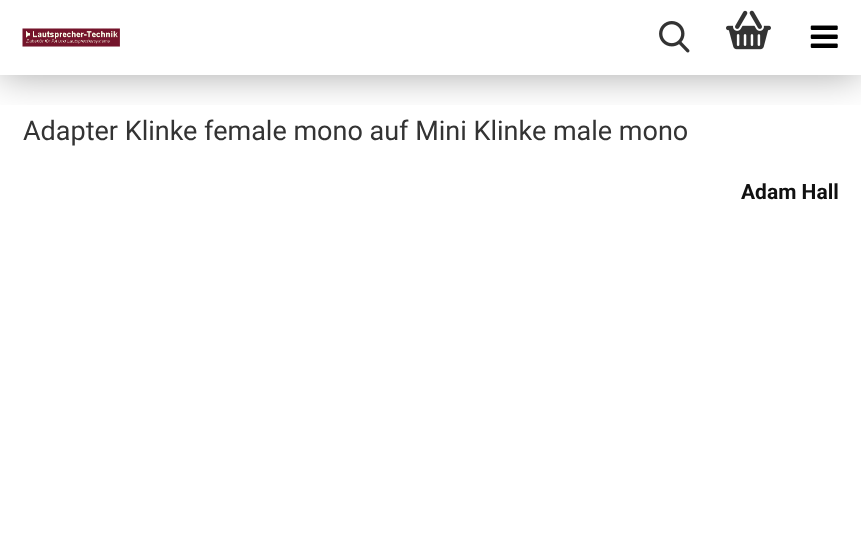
<svg xmlns="http://www.w3.org/2000/svg" width="861" height="553" viewBox="0 0 861 553">
  <defs>
    <clipPath id="clip1"><path d="M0 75h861v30H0z"/></clipPath>
  </defs>
  <rect width="100%" height="100%" fill="#fff"/>
  <g clip-path="url(#clip1)">
    <path d="M0 0h861v75H0z" fill="#00000059" filter="blur(19px)"/>
  </g>
  <image x="22" y="28" width="98" height="19" href="img/1.png"/>
  <image x="659" y="21" width="31" height="32" href="img/2.png"/>
  <image x="726" y="10" width="45" height="40" href="img/3.png"/>
  <image x="810" y="25" width="28" height="23" href="img/4.png"/>
  <text x="23" y="140" font-family="Roboto" font-size="27" fill="#333">Adapter Klinke female mono auf Mini Klinke male mono</text>
  <text x="741" y="199" font-family="Roboto" font-size="21" font-weight="bold" fill="#111">Adam Hall</text>
</svg>
